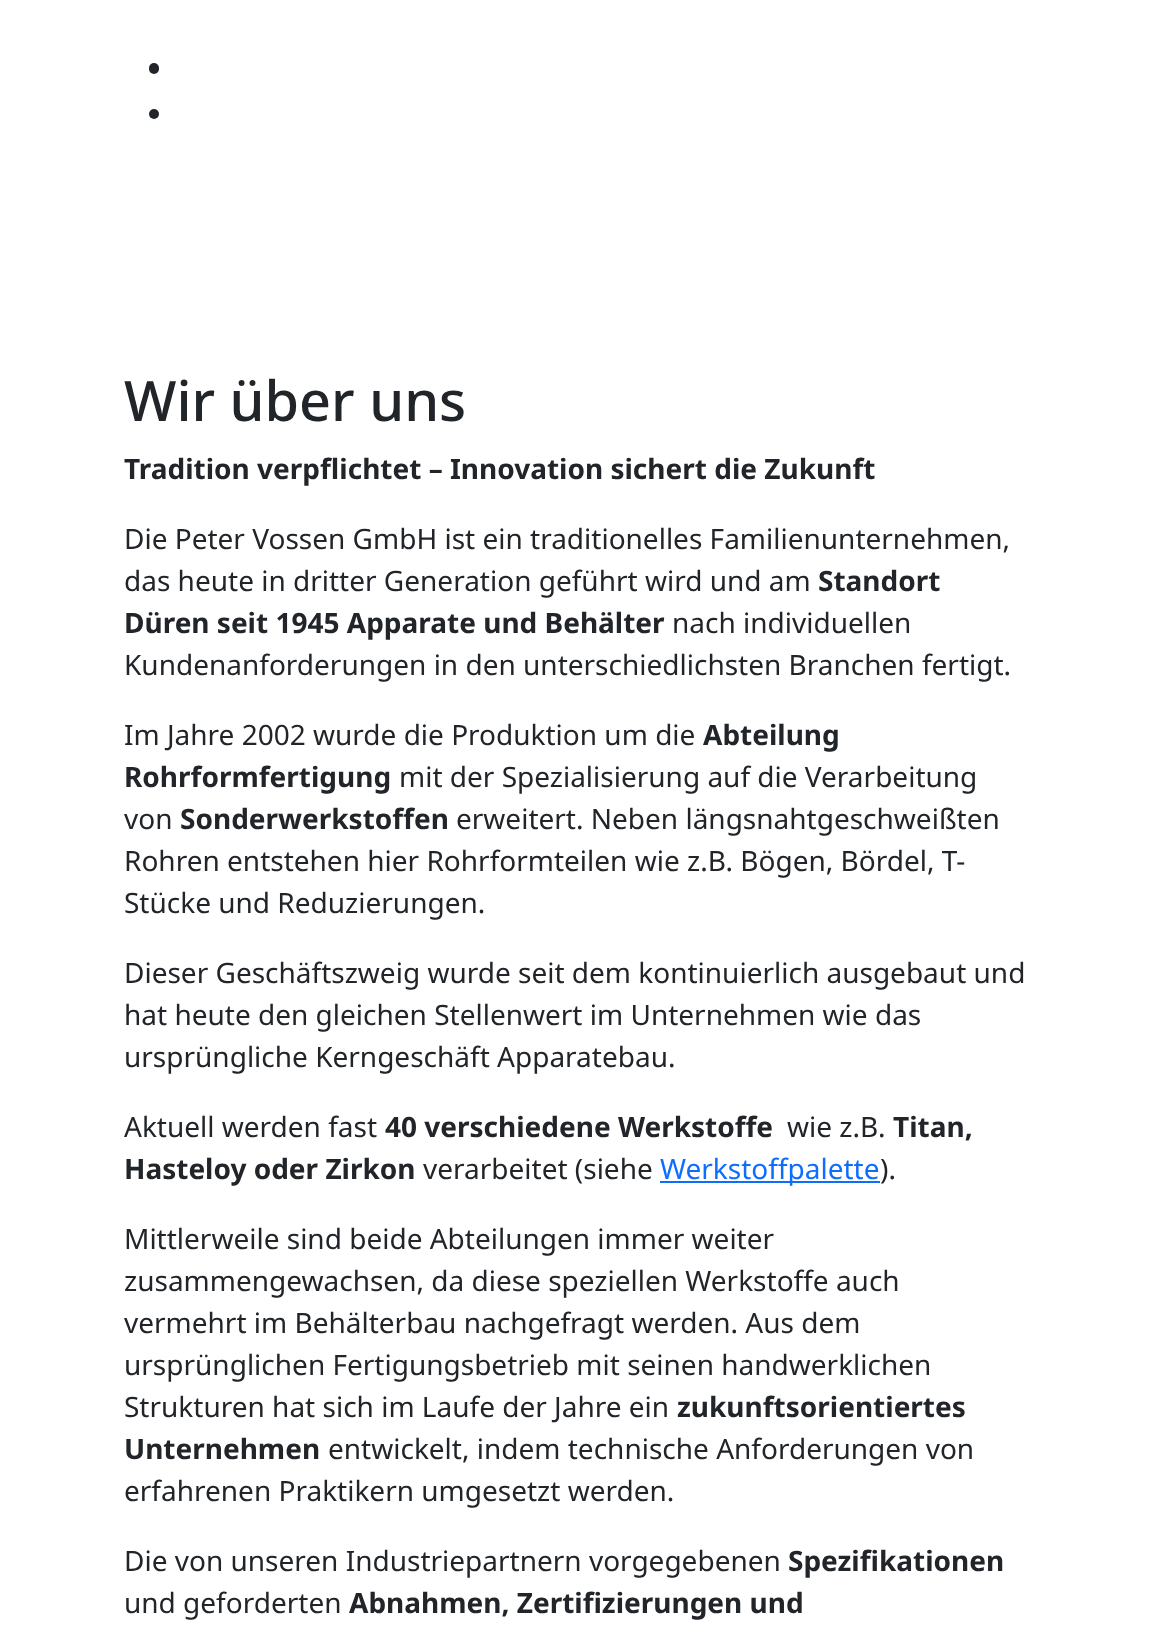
<svg xmlns="http://www.w3.org/2000/svg" width="1151" height="1642" viewBox="0 0 1151 1642">
  <rect width="100%" height="100%" fill="#fff"/>
  <rect x="149" y="63" width="10" height="11" rx="5" fill="#212529"/>
  <circle cx="154" cy="114" r="5" fill="#212529"/>
  <path d="M660 1181h220v2H660z" fill="#0d6efd"/>
  <text x="124" y="421" font-family="Noto Sans" font-size="55.75" font-weight="500" fill="#212529">Wir über uns</text>
  <text x="124" y="479" font-family="Noto Sans" font-size="28" font-weight="bold" fill="#212529">Tradition verpflichtet – Innovation sichert die Zukunft</text>
  <g font-family="Noto Sans" font-size="28" fill="#212529">
    <text x="124" y="549">Die Peter Vossen GmbH ist ein traditionelles Familienunternehmen,</text>
    <text x="124" y="591">das heute in dritter Generation geführt wird und am</text>
  </g>
  <g font-family="Noto Sans" font-size="28" font-weight="bold" fill="#212529">
    <text x="818" y="591">Standort</text>
    <text x="124" y="633">Düren seit 1945 Apparate und Behälter</text>
  </g>
  <g font-family="Noto Sans" font-size="28" fill="#212529">
    <text x="672" y="633">nach individuellen</text>
    <text x="124" y="675">Kundenanforderungen in den unterschiedlichsten Branchen fertigt.</text>
    <text x="124" y="745">Im Jahre 2002 wurde die Produktion um die</text>
  </g>
  <g font-family="Noto Sans" font-size="28" font-weight="bold" fill="#212529">
    <text x="703" y="745">Abteilung</text>
    <text x="124" y="787">Rohrformfertigung</text>
  </g>
  <g font-family="Noto Sans" font-size="28" fill="#212529">
    <text x="399" y="787">mit der Spezialisierung auf die Verarbeitung</text>
    <text x="124" y="829">von</text>
  </g>
  <text x="180" y="829" font-family="Noto Sans" font-size="28" font-weight="bold" fill="#212529">Sonderwerkstoffen</text>
  <g font-family="Noto Sans" font-size="28" fill="#212529">
    <text x="456" y="829">erweitert. Neben längsnahtgeschweißten</text>
    <text x="124" y="871">Rohren entstehen hier Rohrformteilen wie z.B. Bögen, Bördel, T-</text>
    <text x="124" y="913">Stücke und Reduzierungen.</text>
    <text x="124" y="983">Dieser Geschäftszweig wurde seit dem kontinuierlich ausgebaut und</text>
    <text x="124" y="1025">hat heute den gleichen Stellenwert im Unternehmen wie das</text>
    <text x="124" y="1067">ursprüngliche Kerngeschäft Apparatebau.</text>
    <text x="124" y="1137">Aktuell werden fast</text>
  </g>
  <text x="385" y="1137" font-family="Noto Sans" font-size="28" font-weight="bold" fill="#212529">40 verschiedene Werkstoffe</text>
  <text x="787" y="1137" font-family="Noto Sans" font-size="28" fill="#212529">wie z.B.</text>
  <g font-family="Noto Sans" font-size="28" font-weight="bold" fill="#212529">
    <text x="893" y="1137">Titan,</text>
    <text x="124" y="1179">Hasteloy oder Zirkon</text>
  </g>
  <text x="423" y="1179" font-family="Noto Sans" font-size="28" fill="#212529">verarbeitet (siehe</text>
  <text x="660" y="1179" font-family="Noto Sans" font-size="28" fill="#0d6efd">Werkstoffpalette</text>
  <g font-family="Noto Sans" font-size="28" fill="#212529">
    <text x="880" y="1179">).</text>
    <text x="124" y="1249">Mittlerweile sind beide Abteilungen immer weiter</text>
    <text x="124" y="1291">zusammengewachsen, da diese speziellen Werkstoffe auch</text>
    <text x="124" y="1333">vermehrt im Behälterbau nachgefragt werden. Aus dem</text>
    <text x="124" y="1375">ursprünglichen Fertigungsbetrieb mit seinen handwerklichen</text>
    <text x="124" y="1417">Strukturen hat sich im Laufe der Jahre ein</text>
  </g>
  <g font-family="Noto Sans" font-size="28" font-weight="bold" fill="#212529">
    <text x="677" y="1417">zukunftsorientiertes</text>
    <text x="124" y="1459">Unternehmen</text>
  </g>
  <g font-family="Noto Sans" font-size="28" fill="#212529">
    <text x="328" y="1459">entwickelt, indem technische Anforderungen von</text>
    <text x="124" y="1501">erfahrenen Praktikern umgesetzt werden.</text>
    <text x="124" y="1571">Die von unseren Industriepartnern vorgegebenen</text>
  </g>
  <text x="788" y="1571" font-family="Noto Sans" font-size="28" font-weight="bold" fill="#212529">Spezifikationen</text>
  <text x="124" y="1613" font-family="Noto Sans" font-size="28" fill="#212529">und geforderten</text>
  <text x="349" y="1613" font-family="Noto Sans" font-size="28" font-weight="bold" fill="#212529">Abnahmen, Zertifizierungen und</text>
</svg>
